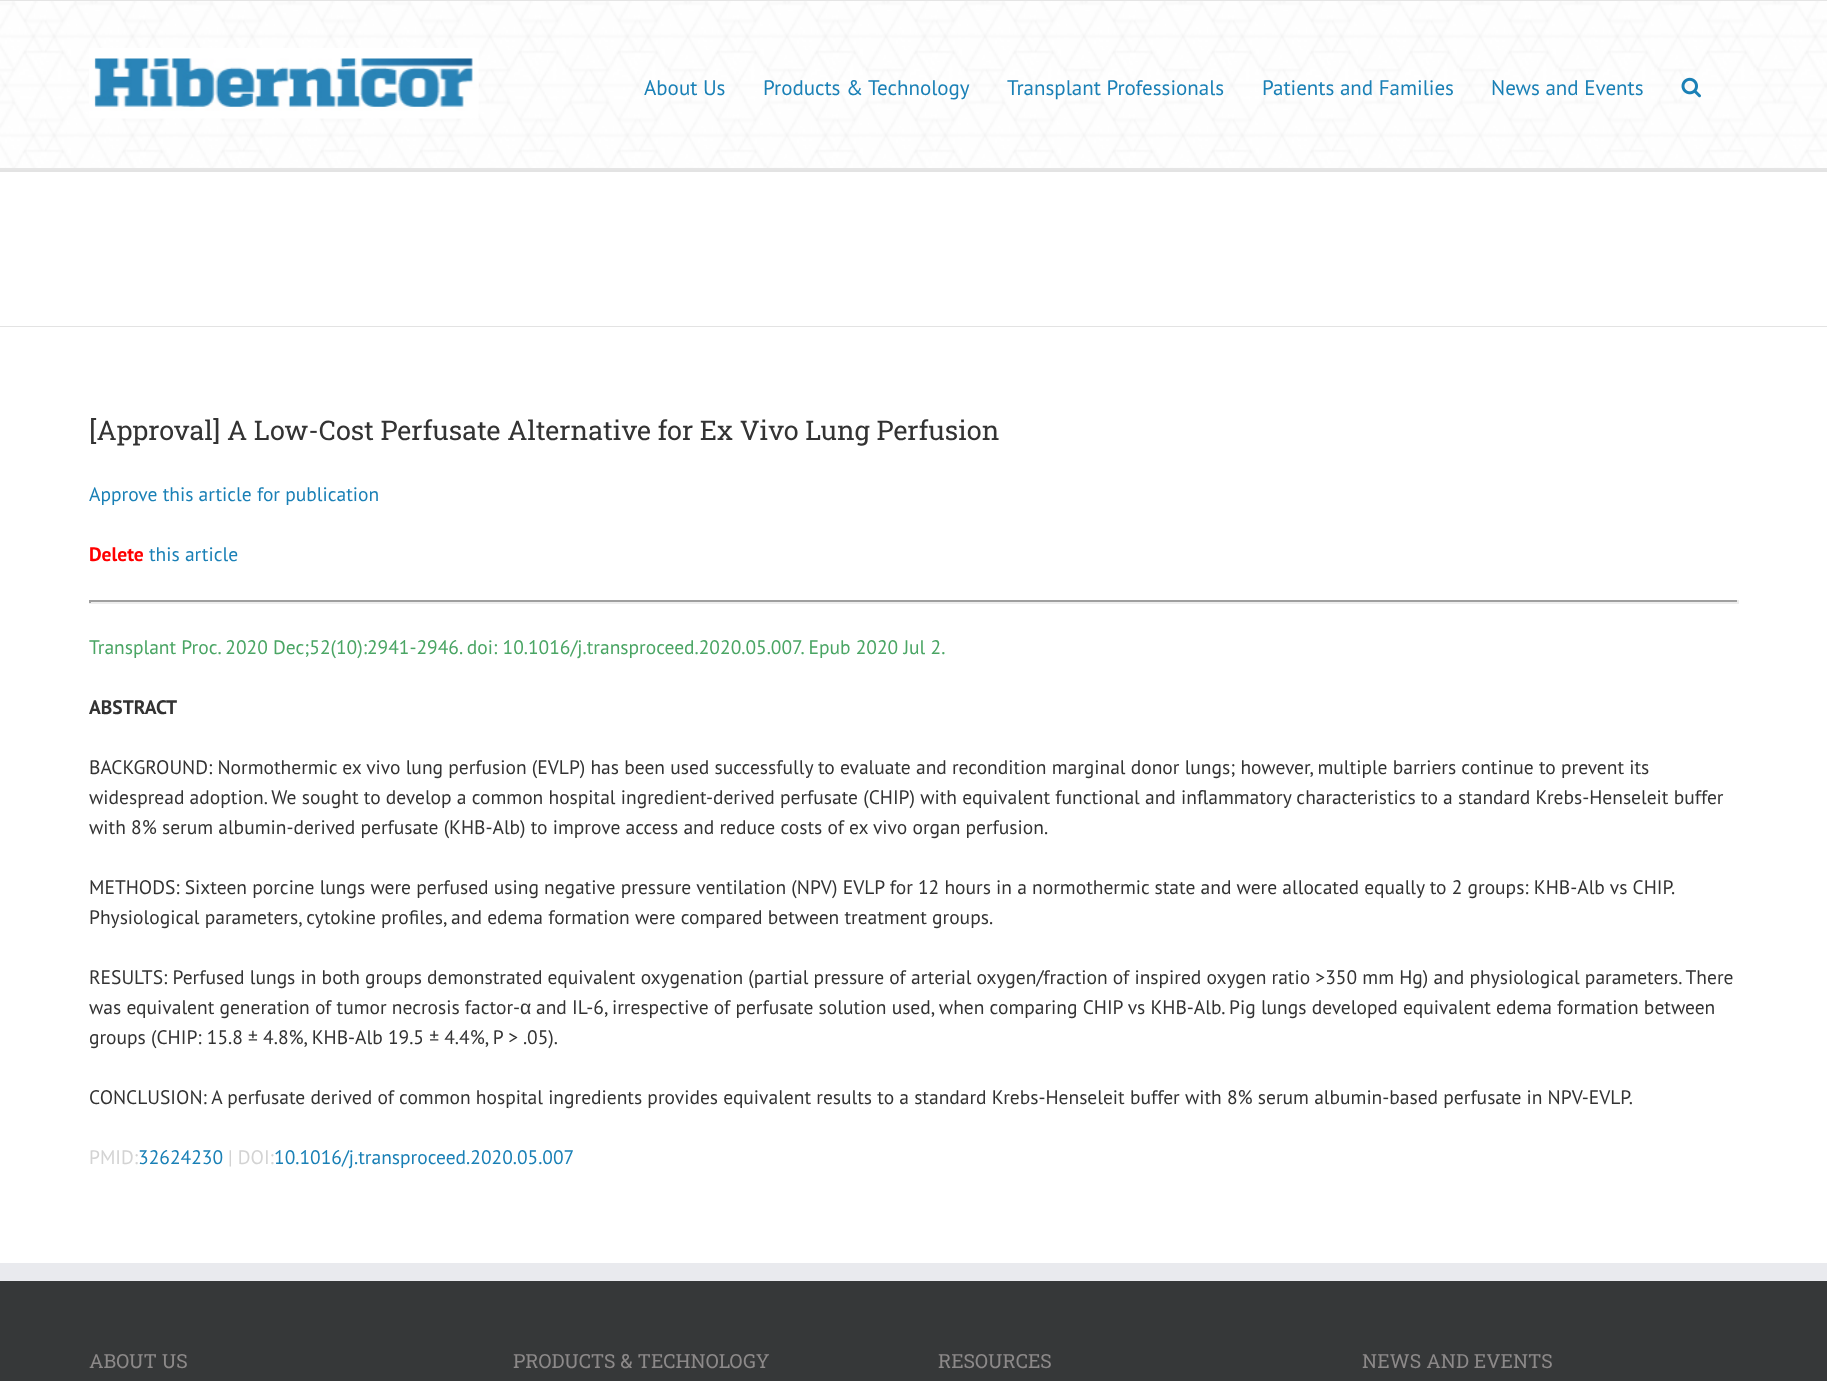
<svg xmlns="http://www.w3.org/2000/svg" width="1827" height="1381" viewBox="0 0 1827 1381">
  <rect width="100%" height="100%" fill="#fff"/>
  <path d="M0 0h1827v1H0z" fill="#e5e5e5"/>
  <image x="0" y="1" width="1827" height="167" href="img/1.png"/>
  <path d="M0 168h1827v2H0z" fill="#e5e5e5"/>
  <image x="89" y="48" width="390" height="71" href="img/2.png"/>
  <image x="1681" y="77" width="20" height="21" href="img/3.png"/>
  <path d="M0 170h1827v2H0z" fill="#e3e3e3"/>
  <path d="M0 326h1827v1H0z" fill="#e3e3e3"/>
  <path d="M89 600h1650v2H89z" fill="#9f9f9f"/>
  <path d="M1737 600h2v3H1737z" fill="#eee"/>
  <path d="M89 602h1650v2H89z" fill="#eee"/>
  <path d="M89 600h2v3H89z" fill="#9f9f9f"/>
  <path d="M0 1281h1827v100H0z" fill="#363839"/>
  <path d="M0 1263h1827v18H0z" fill="#e9eaee"/>
  <g font-family="PT Sans" font-size="21" fill="#1a80b6">
    <text x="644" y="95">About Us</text>
    <text x="763" y="95">Products &amp; Technology</text>
    <text x="1007" y="95">Transplant Professionals</text>
    <text x="1262" y="95">Patients and Families</text>
    <text x="1491" y="95">News and Events</text>
  </g>
  <text x="89" y="440" font-family="Roboto Slab" font-size="27" fill="#333">[Approval] A Low-Cost Perfusate Alternative for Ex Vivo Lung Perfusion</text>
  <text x="89" y="501" font-family="PT Sans" font-size="19.5" fill="#1a80b6">Approve this article for publication</text>
  <text x="89" y="561" font-family="PT Sans" font-size="19.5" font-weight="bold" fill="#f00">Delete</text>
  <text x="149" y="561" font-family="PT Sans" font-size="19.5" fill="#1a80b6">this article</text>
  <text x="89" y="654" font-family="PT Sans" font-size="19.5" fill="#4aa564">Transplant Proc. 2020 Dec;52(10):2941-2946. doi: 10.1016/j.transproceed.2020.05.007. Epub 2020 Jul 2.</text>
  <text x="89" y="714" font-family="PT Sans" font-size="19.5" font-weight="bold" fill="#333">ABSTRACT</text>
  <g font-family="PT Sans" font-size="19.5" fill="#333">
    <text x="89" y="774">BACKGROUND: Normothermic ex vivo lung perfusion (EVLP) has been used successfully to evaluate and recondition marginal donor lungs; however, multiple barriers continue to prevent its</text>
    <text x="89" y="804">widespread adoption. We sought to develop a common hospital ingredient-derived perfusate (CHIP) with equivalent functional and inflammatory characteristics to a standard Krebs-Henseleit buffer</text>
    <text x="89" y="834">with 8% serum albumin-derived perfusate (KHB-Alb) to improve access and reduce costs of ex vivo organ perfusion.</text>
    <text x="89" y="894">METHODS: Sixteen porcine lungs were perfused using negative pressure ventilation (NPV) EVLP for 12 hours in a normothermic state and were allocated equally to 2 groups: KHB-Alb vs CHIP.</text>
    <text x="89" y="924">Physiological parameters, cytokine profiles, and edema formation were compared between treatment groups.</text>
    <text x="89" y="984">RESULTS: Perfused lungs in both groups demonstrated equivalent oxygenation (partial pressure of arterial oxygen/fraction of inspired oxygen ratio &gt;350 mm Hg) and physiological parameters. There</text>
    <text x="89" y="1014">was equivalent generation of tumor necrosis factor-</text>
  </g>
  <text x="520" y="1014" font-family="Liberation Sans" font-size="19.5" fill="#333">α</text>
  <g font-family="PT Sans" font-size="19.5" fill="#333">
    <text x="536" y="1014">and IL-6, irrespective of perfusate solution used, when comparing CHIP vs KHB-Alb. Pig lungs developed equivalent edema formation between</text>
    <text x="89" y="1044">groups (CHIP: 15.8 ± 4.8%, KHB-Alb 19.5 ± 4.4%, P &gt; .05).</text>
    <text x="89" y="1104">CONCLUSION: A perfusate derived of common hospital ingredients provides equivalent results to a standard Krebs-Henseleit buffer with 8% serum albumin-based perfusate in NPV-EVLP.</text>
  </g>
  <text x="89" y="1164" font-family="PT Sans" font-size="19.5" fill="#d3d3d3">PMID:</text>
  <text x="138" y="1164" font-family="PT Sans" font-size="19.5" fill="#1a80b6">32624230</text>
  <text x="228" y="1164" font-family="PT Sans" font-size="19.5" fill="#d3d3d3">| DOI:</text>
  <text x="274" y="1164" font-family="PT Sans" font-size="19.5" fill="#1a80b6">10.1016/j.transproceed.2020.05.007</text>
  <g font-family="Roboto Slab" font-size="19.5" fill="#8c8989">
    <text x="89" y="1368">ABOUT US</text>
    <text x="513" y="1368">PRODUCTS &amp; TECHNOLOGY</text>
    <text x="938" y="1368">RESOURCES</text>
    <text x="1362" y="1368">NEWS AND EVENTS</text>
  </g>
</svg>
